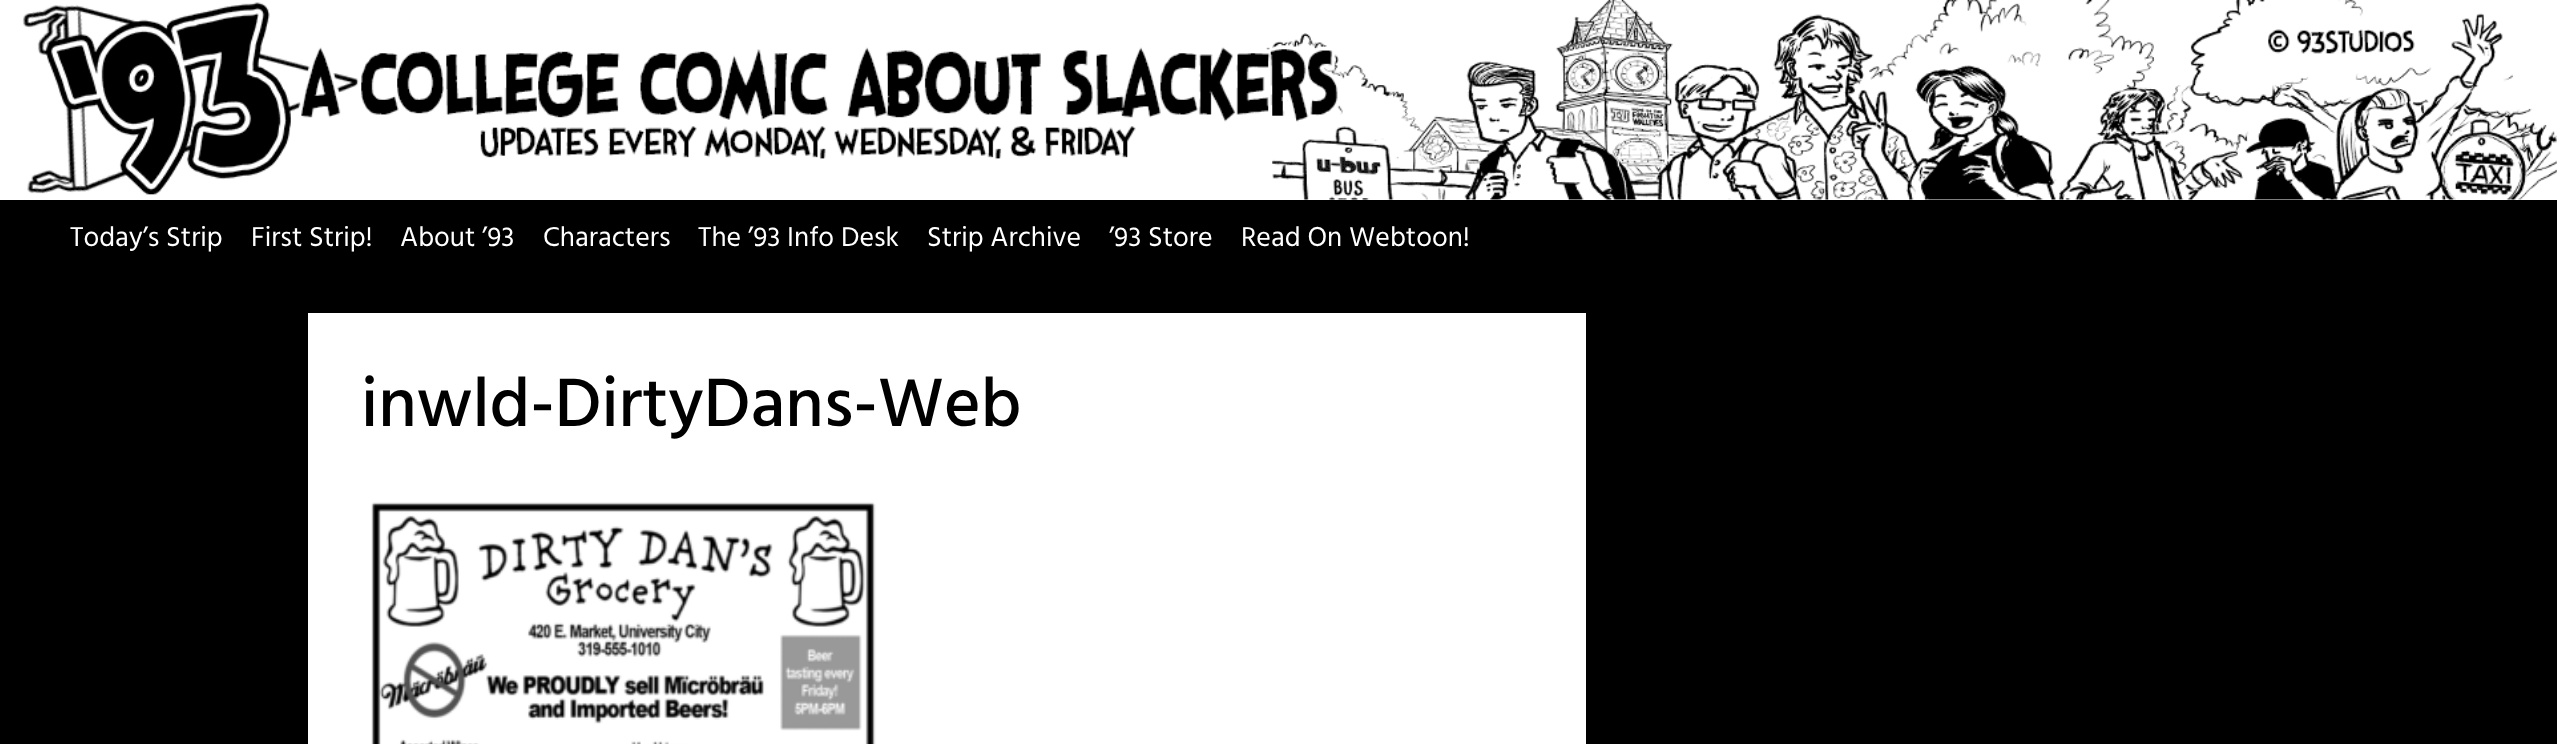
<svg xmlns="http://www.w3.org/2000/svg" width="2557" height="744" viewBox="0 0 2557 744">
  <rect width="100%" height="100%" fill="#000"/>
  <path d="M0 0h2557v200H0z" fill="#fff"/>
  <image x="22" y="0" width="2535" height="200" href="img/1.png"/>
  <path d="M308 313h1278v431H308z" fill="#fff"/>
  <image x="371" y="502" width="505" height="242" href="img/2.png"/>
  <g font-family="Hind" font-size="28" fill="#fff">
    <text x="70" y="246">Today’s Strip</text>
    <text x="251" y="246">First Strip!</text>
    <text x="400" y="246">About ’93</text>
    <text x="543" y="246">Characters</text>
    <text x="698" y="246">The ’93 Info Desk</text>
    <text x="927" y="246">Strip Archive</text>
    <text x="1109" y="246">’93 Store</text>
    <text x="1241" y="246">Read On Webtoon!</text>
  </g>
  <text x="361" y="426" font-family="Hind" font-size="70" font-weight="500" fill="#000">inwld-DirtyDans-Web</text>
</svg>
